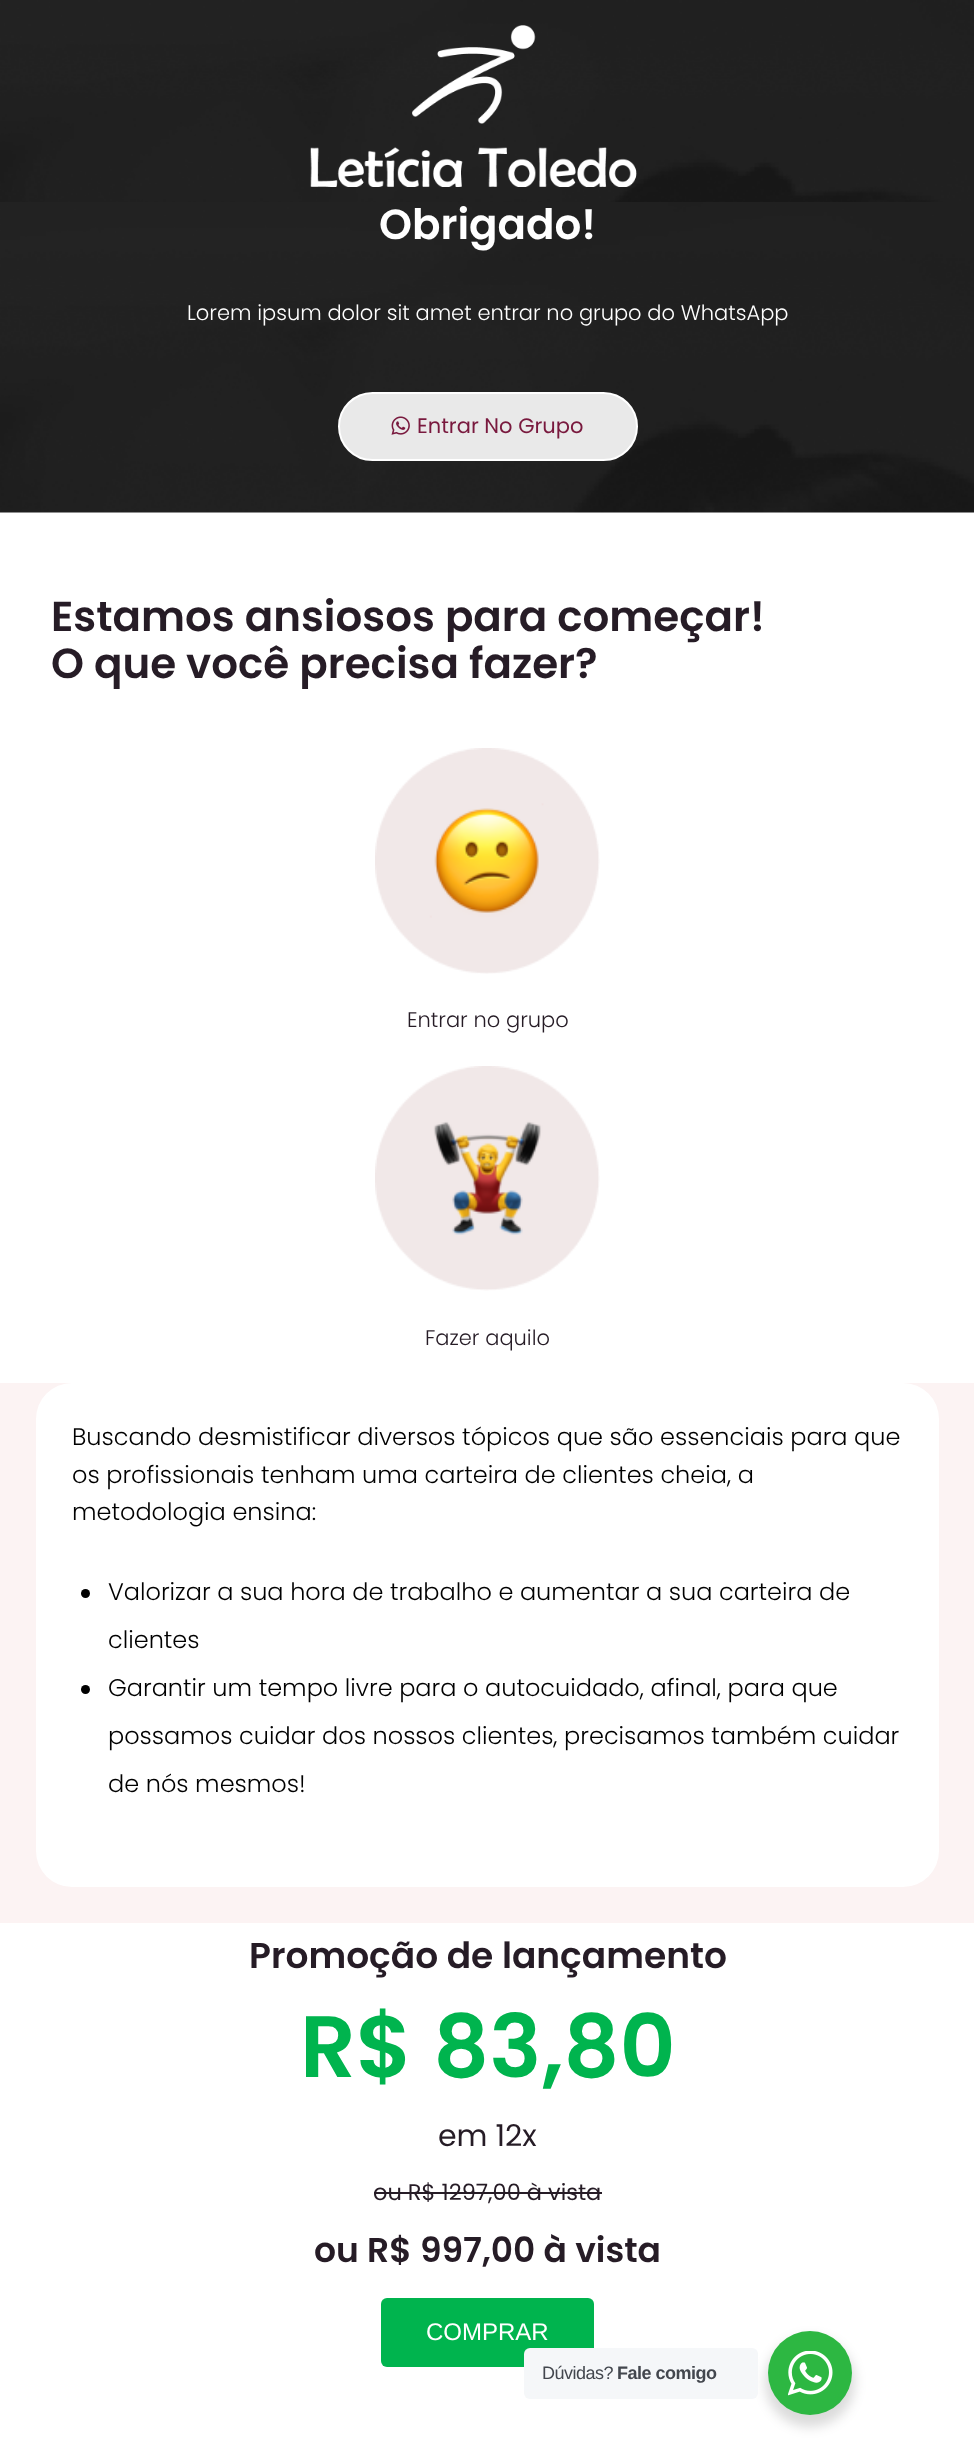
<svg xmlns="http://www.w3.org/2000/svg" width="974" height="2460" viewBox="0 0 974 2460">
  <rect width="100%" height="100%" fill="#fff"/>
  <image x="0" y="0" width="974" height="202" href="img/1.png"/>
  <image x="310" y="25" width="327" height="162" href="img/2.png"/>
  <image x="0" y="202" width="974" height="311" href="img/3.png"/>
  <rect x="339" y="393" width="298" height="67" rx="33.5" fill="#ffffffe6" stroke="#fff" stroke-width="2"/>
  <image x="391" y="416" width="19" height="19" href="img/4.png"/>
  <image x="375" y="748" width="225" height="226" href="img/5.png"/>
  <image x="375" y="1066" width="225" height="225" href="img/6.png"/>
  <path d="M0 1383h974v540H0z" fill="#fcf3f3"/>
  <rect x="36" y="1383" width="903" height="504" rx="36" fill="#fff"/>
  <circle cx="85.5" cy="1593.5" r="4.5" fill="#000"/>
  <circle cx="85.5" cy="1689.5" r="4.5" fill="#000"/>
  <path d="M374 2192h228v2H374z" fill="#261c26"/>
  <rect x="381" y="2298" width="213" height="69" rx="6" fill="#00b44e"/>
  <rect x="765" y="2337" width="90" height="90" rx="45" fill="#00000024" filter="blur(6px)"/>
  <rect x="524" y="2348" width="234" height="51" rx="6" fill="#f5f7f9"/>
  <circle cx="810" cy="2373" r="42" fill="#2db742"/>
  <image x="788" y="2351" width="45" height="45" href="img/7.png"/>
  <text x="379" y="239" font-family="Poppins" font-size="42" font-weight="600" fill="#fff">Obrigado!</text>
  <text x="187" y="320" font-family="Poppins" font-size="21" font-weight="300" fill="#fff">Lorem ipsum dolor sit amet entrar no grupo do WhatsApp</text>
  <text x="417" y="433" font-family="Poppins" font-size="21" fill="#79193e">Entrar No Grupo</text>
  <g font-family="Poppins" font-size="42" font-weight="600" fill="#261c26">
    <text x="51" y="631">Estamos ansiosos para começar!</text>
    <text x="51" y="678">O que você precisa fazer?</text>
  </g>
  <g font-family="Poppins" font-size="21" font-weight="300" fill="#261c26">
    <text x="407" y="1027">Entrar no grupo</text>
    <text x="425" y="1345">Fazer aquilo</text>
  </g>
  <g font-family="Poppins" font-size="24" font-weight="300" fill="#000">
    <text x="72" y="1445">Buscando desmistificar diversos tópicos que são essenciais para que</text>
    <text x="72" y="1483">os profissionais tenham uma carteira de clientes cheia, a</text>
    <text x="72" y="1520">metodologia ensina:</text>
    <text x="108" y="1600">Valorizar a sua hora de trabalho e aumentar a sua carteira de</text>
    <text x="108" y="1648">clientes</text>
    <text x="108" y="1696">Garantir um tempo livre para o autocuidado, afinal, para que</text>
    <text x="108" y="1744">possamos cuidar dos nossos clientes, precisamos também cuidar</text>
    <text x="108" y="1792">de nós mesmos!</text>
  </g>
  <text x="249" y="1968" font-family="Poppins" font-size="36" font-weight="600" fill="#261c26">Promoção de lançamento</text>
  <text x="300" y="2077" font-family="Poppins" font-size="87" font-weight="600" fill="#00b44e">R$ 83,80</text>
  <text x="438" y="2146" font-family="Poppins" font-size="30" fill="#261c26">em 12x</text>
  <text x="373" y="2200" font-family="Poppins" font-size="22.5" fill="#261c26">ou R$ 1297,00 à vista</text>
  <text x="314" y="2262" font-family="Poppins" font-size="34.5" font-weight="600" fill="#261c26">ou R$ 997,00 à vista</text>
  <text x="426" y="2340" font-family="Liberation Sans" font-size="24" fill="#fff">COMPRAR</text>
  <text x="542" y="2379" font-family="Liberation Sans" font-size="18" letter-spacing="-0.5" fill="#43474e">Dúvidas?</text>
  <text x="617" y="2379" font-family="Liberation Sans" font-size="18" font-weight="bold" letter-spacing="-0.5" fill="#43474e">Fale comigo</text>
</svg>
